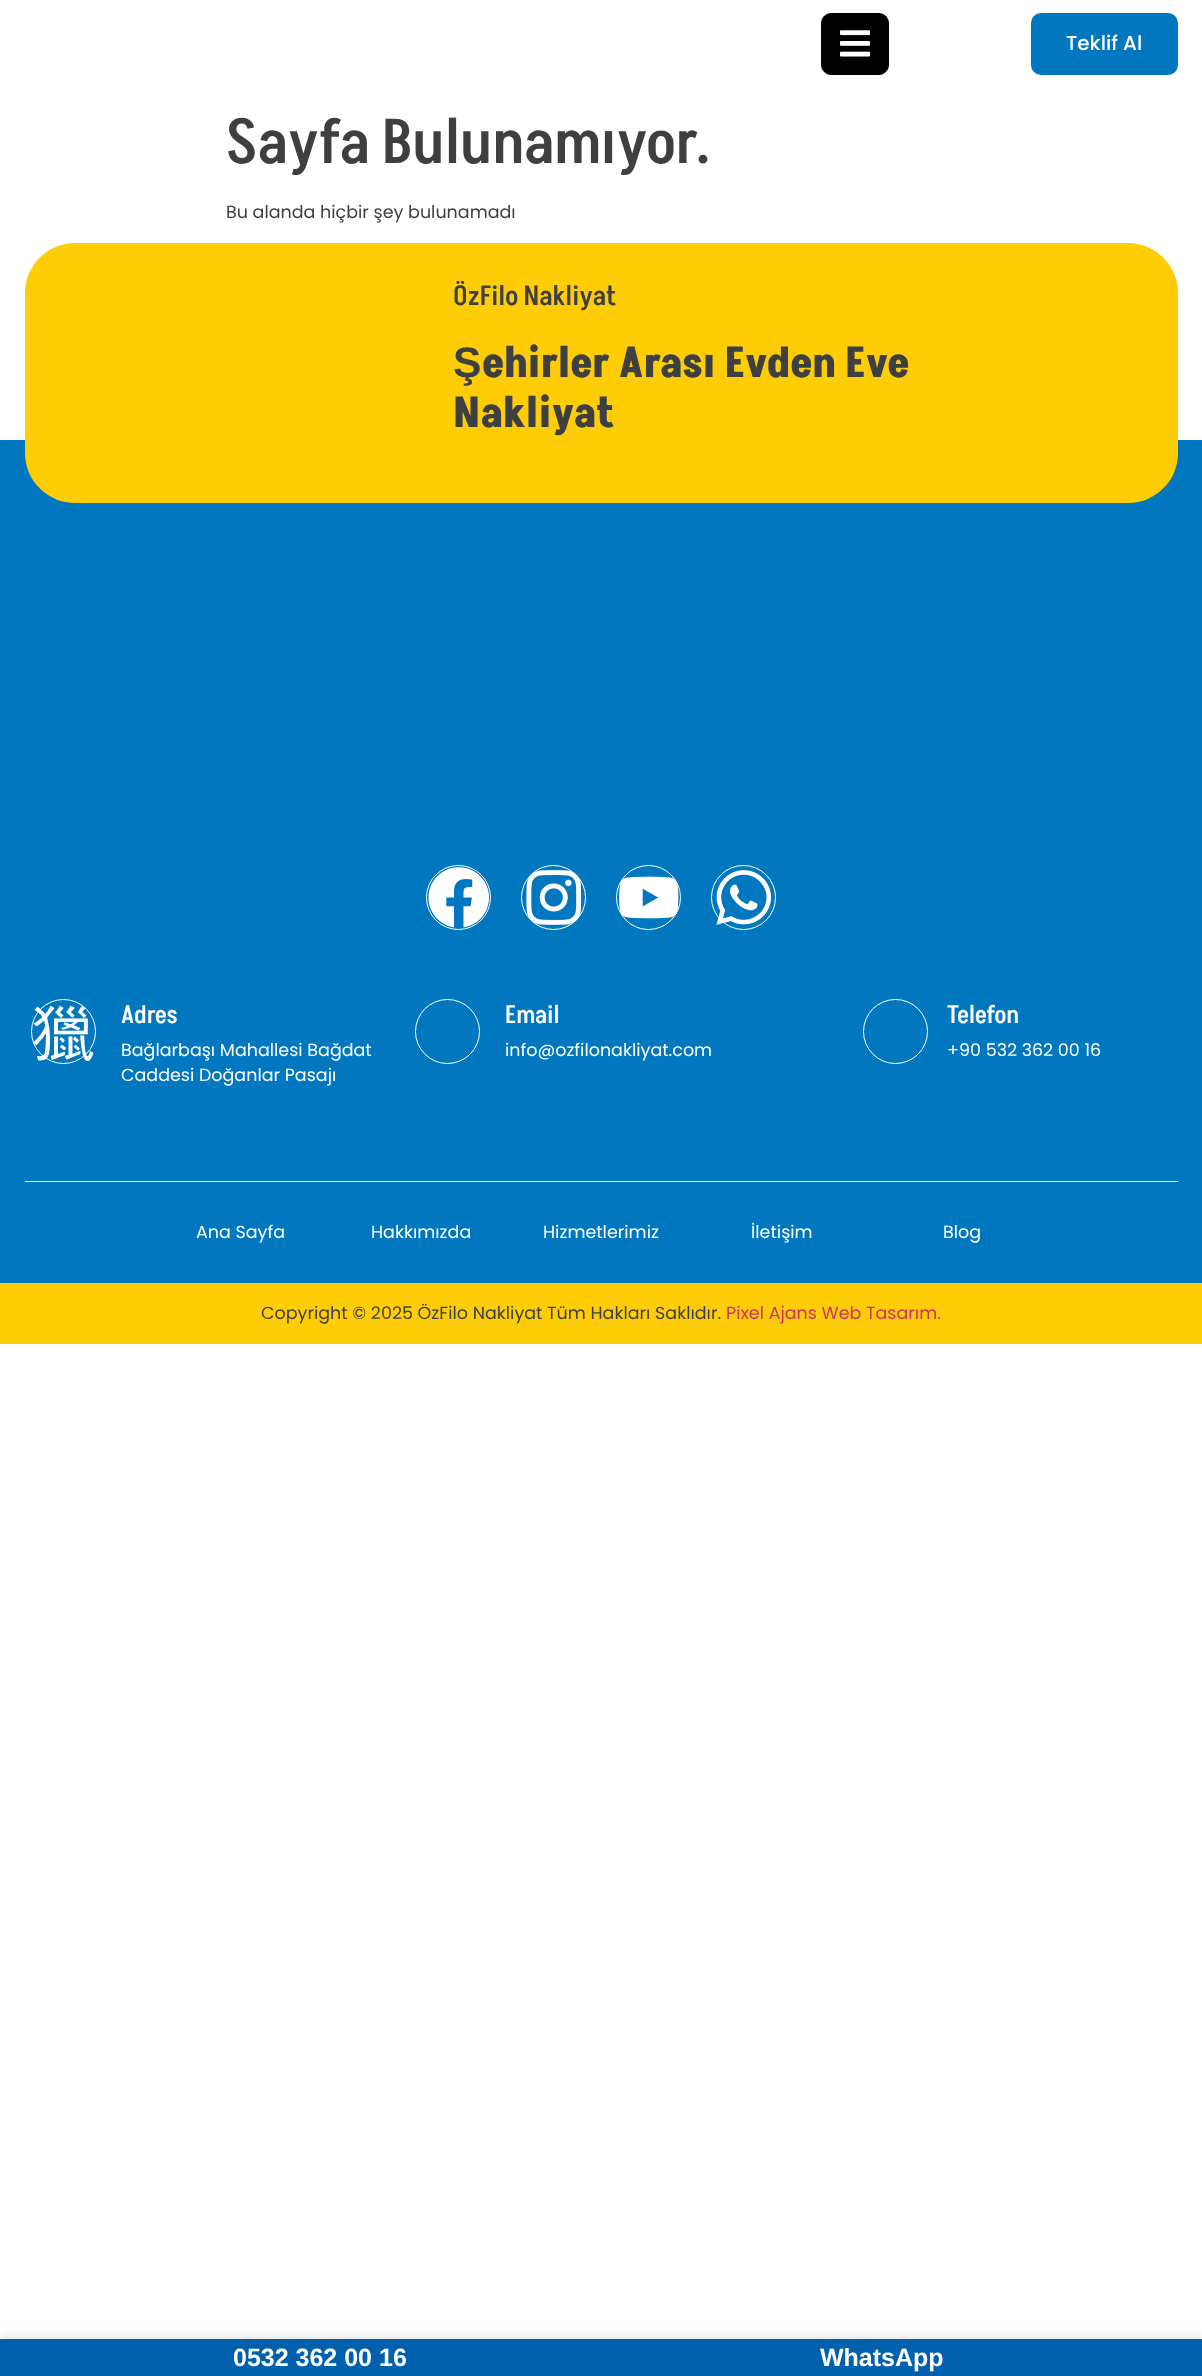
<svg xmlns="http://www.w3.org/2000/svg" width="1202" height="2376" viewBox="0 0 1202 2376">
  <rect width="100%" height="100%" fill="#fff"/>
  <rect x="821.5" y="13.5" width="67" height="61" rx="9.5" fill="#000" stroke="#000"/>
  <image x="840" y="30" width="30" height="27" href="img/1.png"/>
  <rect x="1031" y="13" width="147" height="62" rx="10" fill="#0077be"/>
  <path d="M0 440h1202v843H0z" fill="#0077be"/>
  <rect x="25" y="243" width="1153" height="260" rx="50" fill="#ffcd06"/>
  <circle cx="458.5" cy="897.5" r="32" fill="none" stroke="#fff"/>
  <image x="428" y="867" width="61" height="61" href="img/2.png"/>
  <circle cx="553.5" cy="897.5" r="32" fill="none" stroke="#fff"/>
  <image x="526" y="870" width="56" height="55" href="img/3.png"/>
  <circle cx="648.5" cy="897.5" r="32" fill="none" stroke="#fff"/>
  <image x="619" y="876" width="60" height="43" href="img/4.png"/>
  <circle cx="743.5" cy="897.5" r="32" fill="none" stroke="#fff"/>
  <image x="716" y="870" width="56" height="55" href="img/5.png"/>
  <path d="M25 1181h1153v1H25z" fill="#fff"/>
  <circle cx="63.5" cy="1031.5" r="32" fill="none" stroke="#fff"/>
  <circle cx="447.5" cy="1031.5" r="32" fill="none" stroke="#fff"/>
  <circle cx="895.5" cy="1031.5" r="32" fill="none" stroke="#fff"/>
  <path d="M0 1283h1202v61H0z" fill="#ffcd06"/>
  <path d="M0 2336h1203v38H0z" fill="#0000001a" filter="blur(6px)"/>
  <path d="M0 2339h1202v37H0z" fill="#0060ae"/>
  <text x="1066" y="50" font-family="Poppins" font-size="20" font-weight="500" fill="#fff">Teklif Al</text>
  <text x="226" y="163" font-family="Akshar" font-size="62.5" font-weight="500" fill="#3e3f41">Sayfa Bulunamıyor.</text>
  <text x="226" y="218" font-family="Poppins" font-size="17.5" fill="#3e3f41">Bu alanda hiçbir şey bulunamadı</text>
  <text x="453" y="305" font-family="Akshar" font-size="27.5" font-weight="500" fill="#3e3f41">ÖzFilo Nakliyat</text>
  <text x="453" y="377" font-family="Liberation Sans" font-size="42.5" font-weight="bold" fill="#3e3f41">Ş</text>
  <g font-family="Akshar" font-size="42.5" font-weight="bold" fill="#3e3f41">
    <text x="482" y="377">ehirler Arası Evden Eve</text>
    <text x="453" y="427">Nakliyat</text>
  </g>
  <text x="32" y="1053" font-family="WenQuanYi Zen Hei" font-size="62.5" font-weight="500" fill="#fff">獵</text>
  <text x="121" y="1023" font-family="Akshar" font-size="25" font-weight="500" fill="#fff">Adres</text>
  <g font-family="Poppins" font-size="17.5" fill="#fff">
    <text x="121" y="1056">Bağlarbaşı Mahallesi Bağdat</text>
    <text x="121" y="1081">Caddesi Doğanlar Pasajı</text>
  </g>
  <text x="505" y="1023" font-family="Akshar" font-size="25" font-weight="500" fill="#fff">Email</text>
  <text x="505" y="1056" font-family="Poppins" font-size="17.5" fill="#fff">info@ozfilonakliyat.com</text>
  <text x="947" y="1023" font-family="Akshar" font-size="25" font-weight="500" fill="#fff">Telefon</text>
  <g font-family="Poppins" font-size="17.5" fill="#fff">
    <text x="947" y="1056">+90 532 362 00 16</text>
    <text x="196" y="1238">Ana Sayfa</text>
    <text x="371" y="1238">Hakkımızda</text>
    <text x="543" y="1238">Hizmetlerimiz</text>
    <text x="751" y="1238">İletişim</text>
    <text x="943" y="1238">Blog</text>
  </g>
  <text x="261" y="1319" font-family="Poppins" font-size="17.5" fill="#3e3f41">Copyright © 2025 ÖzFilo Nakliyat Tüm Hakları Saklıdır.</text>
  <text x="726" y="1319" font-family="Poppins" font-size="17.5" fill="#c36">Pixel Ajans Web Tasarım.</text>
  <g font-family="Liberation Sans" font-size="25" font-weight="bold" fill="#fff">
    <text x="233" y="2366">0532 362 00 16</text>
    <text x="820" y="2366">WhatsApp</text>
  </g>
</svg>
